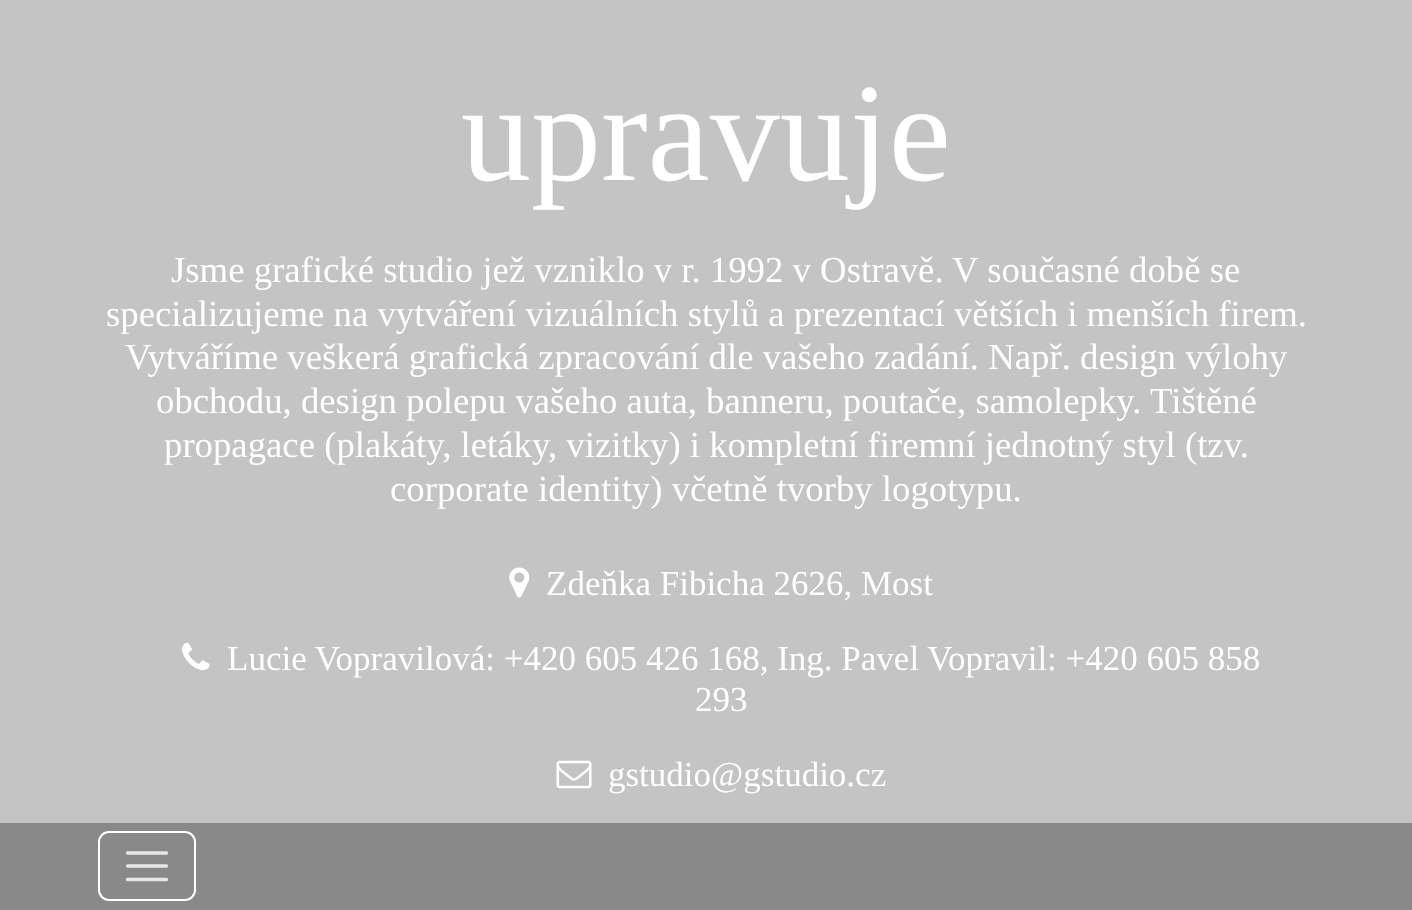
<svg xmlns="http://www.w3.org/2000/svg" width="1412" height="910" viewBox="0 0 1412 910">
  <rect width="100%" height="100%" fill="#c4c4c5"/>
  <image x="509" y="567" width="21" height="31" href="img/1.png"/>
  <image x="182" y="642" width="28" height="29" href="img/2.png"/>
  <image x="556" y="760" width="36" height="29" href="img/3.png"/>
  <path d="M0 823h1412v87H0z" fill="#89898a"/>
  <rect x="99" y="832" width="96" height="68" rx="10" fill="none" stroke="#fff" stroke-width="2"/>
  <path d="M127.5 853H166.5M127.5 866H166.5M127.5 879.5H166.5" fill="none" stroke="#e7e7e8" stroke-width="3.3" stroke-linecap="round"/>
  <text x="461" y="180" font-family="Liberation Serif" font-size="140" fill="#fff">upravuje</text>
  <g font-family="Liberation Serif" font-size="36.75" fill="#fff">
    <text x="171" y="282">Jsme grafické studio jež vzniklo v r. 1992 v Ostravě. V současné době se</text>
    <text x="106" y="326">specializujeme na vytváření vizuálních stylů a prezentací větších i menších firem.</text>
    <text x="125" y="369">Vytváříme veškerá grafická zpracování dle vašeho zadání. Např. design výlohy</text>
    <text x="156" y="413">obchodu, design polepu vašeho auta, banneru, poutače, samolepky. Tištěné</text>
    <text x="164" y="457">propagace (plakáty, letáky, vizitky) i kompletní firemní jednotný styl (tzv.</text>
    <text x="390" y="501">corporate identity) včetně tvorby logotypu.</text>
  </g>
  <g font-family="Liberation Serif" font-size="35" fill="#fff">
    <text x="546" y="595">Zdeňka Fibicha 2626, Most</text>
    <text x="227" y="670">Lucie Vopravilová: +420 605 426 168, Ing. Pavel Vopravil: +420 605 858</text>
    <text x="695" y="711">293</text>
    <text x="608" y="786">gstudio@gstudio.cz</text>
  </g>
</svg>
